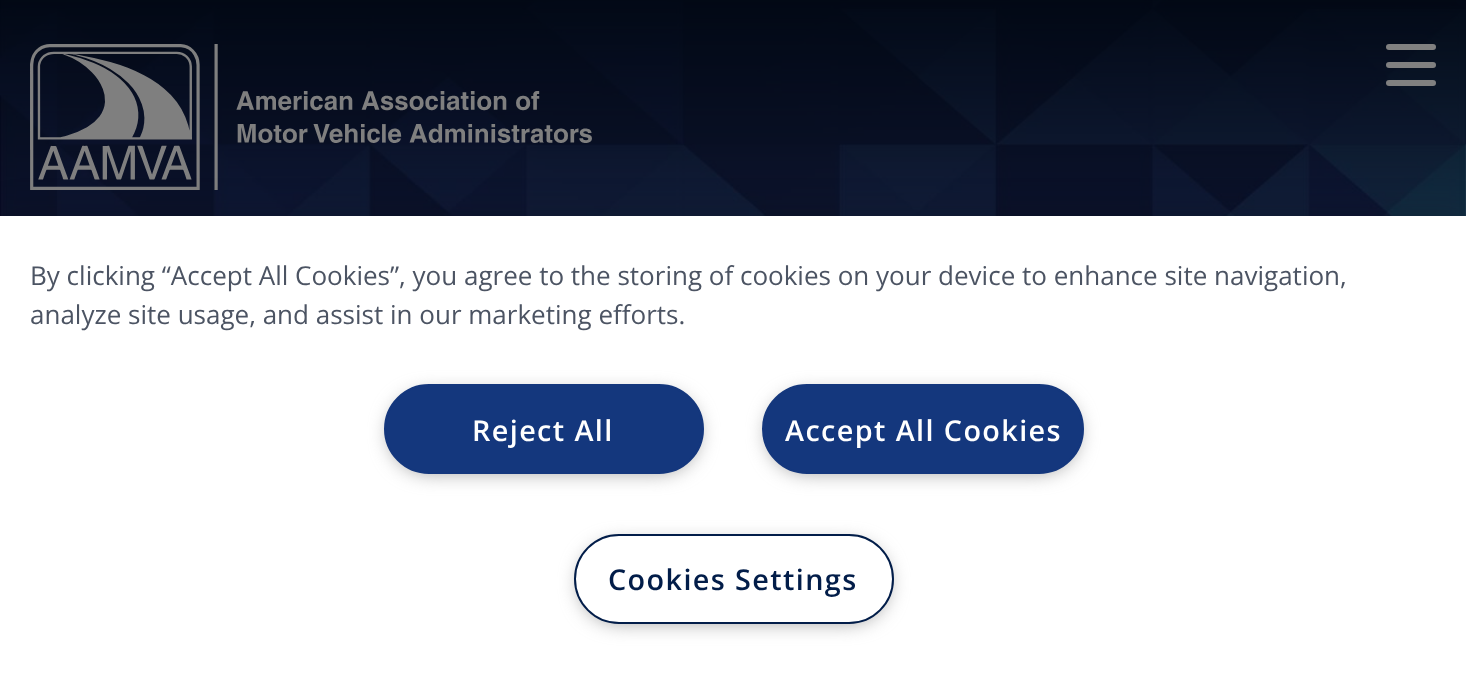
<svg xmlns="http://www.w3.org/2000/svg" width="1466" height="675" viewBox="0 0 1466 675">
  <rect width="100%" height="100%" fill="#fff"/>
  <image x="0" y="0" width="1466" height="216" href="img/1.png"/>
  <image x="30" y="44" width="562" height="146" href="img/2.png"/>
  <rect x="1386" y="44" width="50" height="6" rx="3" fill="#808080"/>
  <rect x="1386" y="62" width="50" height="6" rx="3" fill="#808080"/>
  <rect x="1386" y="80" width="50" height="6" rx="3" fill="#808080"/>
  <path d="M0 216h1466v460H0z" fill="#00000033" filter="blur(18px)"/>
  <path d="M0 216h1466v459H0z" fill="#fff"/>
  <rect x="390" y="394" width="308" height="78" rx="39" fill="#999" filter="blur(10px)"/>
  <rect x="385" y="385" width="318" height="88" rx="44" fill="#14377d" stroke="#14377d" stroke-width="2"/>
  <rect x="768" y="394" width="310" height="78" rx="39" fill="#999" filter="blur(10px)"/>
  <rect x="763" y="385" width="320" height="88" rx="44" fill="#14377d" stroke="#14377d" stroke-width="2"/>
  <rect x="580" y="544" width="308" height="78" rx="39" fill="#999" filter="blur(10px)"/>
  <rect x="575" y="535" width="318" height="88" rx="44" fill="#fff" stroke="#021d49" stroke-width="2"/>
  <g font-family="Open Sans" font-size="26.02" fill="#4c5463">
    <text x="30" y="285">By clicking “Accept All Cookies”, you agree to the storing of cookies on your device to enhance site navigation,</text>
    <text x="30" y="324">analyze site usage, and assist in our marketing efforts.</text>
  </g>
  <g font-family="Open Sans" font-size="28.75" font-weight="600" letter-spacing="1.4" fill="#fff">
    <text x="472" y="441">Reject All</text>
    <text x="785" y="441">Accept All Cookies</text>
  </g>
  <text x="608" y="590" font-family="Open Sans" font-size="28.75" font-weight="600" letter-spacing="1.4" fill="#021d49">Cookies Settings</text>
</svg>
